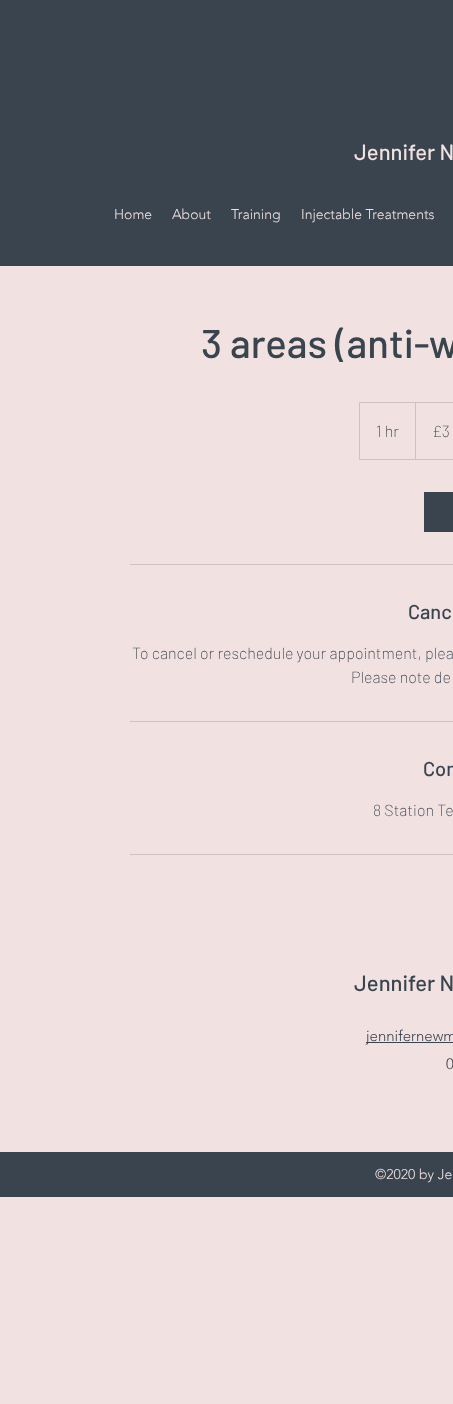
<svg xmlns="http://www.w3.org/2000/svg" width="453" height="1404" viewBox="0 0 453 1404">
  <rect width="100%" height="100%" fill="#f1e1e1"/>
  <path d="M0 0h453v266H0z" fill="#3a444f"/>
  <path d="M359.5 402.5h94v57H359.5z" fill="none" stroke="#ccc2c4"/>
  <path d="M415 459V402L416 403V459Z" fill="#ccc2c4"/>
  <path d="M424 492h29v40H424z" fill="#3a444f"/>
  <path d="M130 564h323v1H130z" fill="#ccc2c4"/>
  <path d="M130 721h323v1H130z" fill="#ccc2c4"/>
  <path d="M130 854h323v1H130z" fill="#ccc2c4"/>
  <path d="M366 1042h87v1H366z" fill="#3a444f"/>
  <path d="M0 1152h453v45H0z" fill="#3a444f"/>
  <text x="354" y="160" font-family="Barlow" font-size="22" font-weight="500" fill="#f1e1e1">Jennifer N</text>
  <g font-family="'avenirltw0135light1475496'" font-size="14" font-weight="300" fill="#f1e1e1">
    <text x="114" y="219">Home</text>
    <text x="172" y="219">About</text>
    <text x="231" y="219">Training</text>
    <text x="301" y="219">Injectable Treatments</text>
  </g>
  <text x="201" y="358" font-family="Barlow" font-size="40" font-weight="500" fill="#3a444f">3 areas (anti-w</text>
  <g font-family="Barlow" font-size="16" font-weight="200" fill="#3a444f">
    <text x="376" y="437">1 hr</text>
    <text x="432" y="437">£3</text>
  </g>
  <text x="408" y="619" font-family="Barlow" font-size="20" font-weight="500" fill="#3a444f">Canc</text>
  <g font-family="Barlow" font-size="16" font-weight="200" fill="#3a444f">
    <text x="132" y="659">To cancel or reschedule your appointment, plea</text>
    <text x="351" y="683">Please note de</text>
  </g>
  <text x="423" y="776" font-family="Barlow" font-size="20" font-weight="500" fill="#3a444f">Con</text>
  <text x="373" y="816" font-family="Barlow" font-size="16" font-weight="200" fill="#3a444f">8 Station Te</text>
  <text x="354" y="991" font-family="Barlow" font-size="22" font-weight="500" fill="#3a444f">Jennifer N</text>
  <g font-family="'avenirltw0135light1475496'" font-size="15" font-weight="300" fill="#3a444f">
    <text x="366" y="1041">jennifernewm</text>
    <text x="446" y="1069">0</text>
  </g>
  <text x="375" y="1179" font-family="'avenirltw0135light1475496'" font-size="14" font-weight="300" fill="#f1e1e1">©2020 by Je</text>
</svg>
